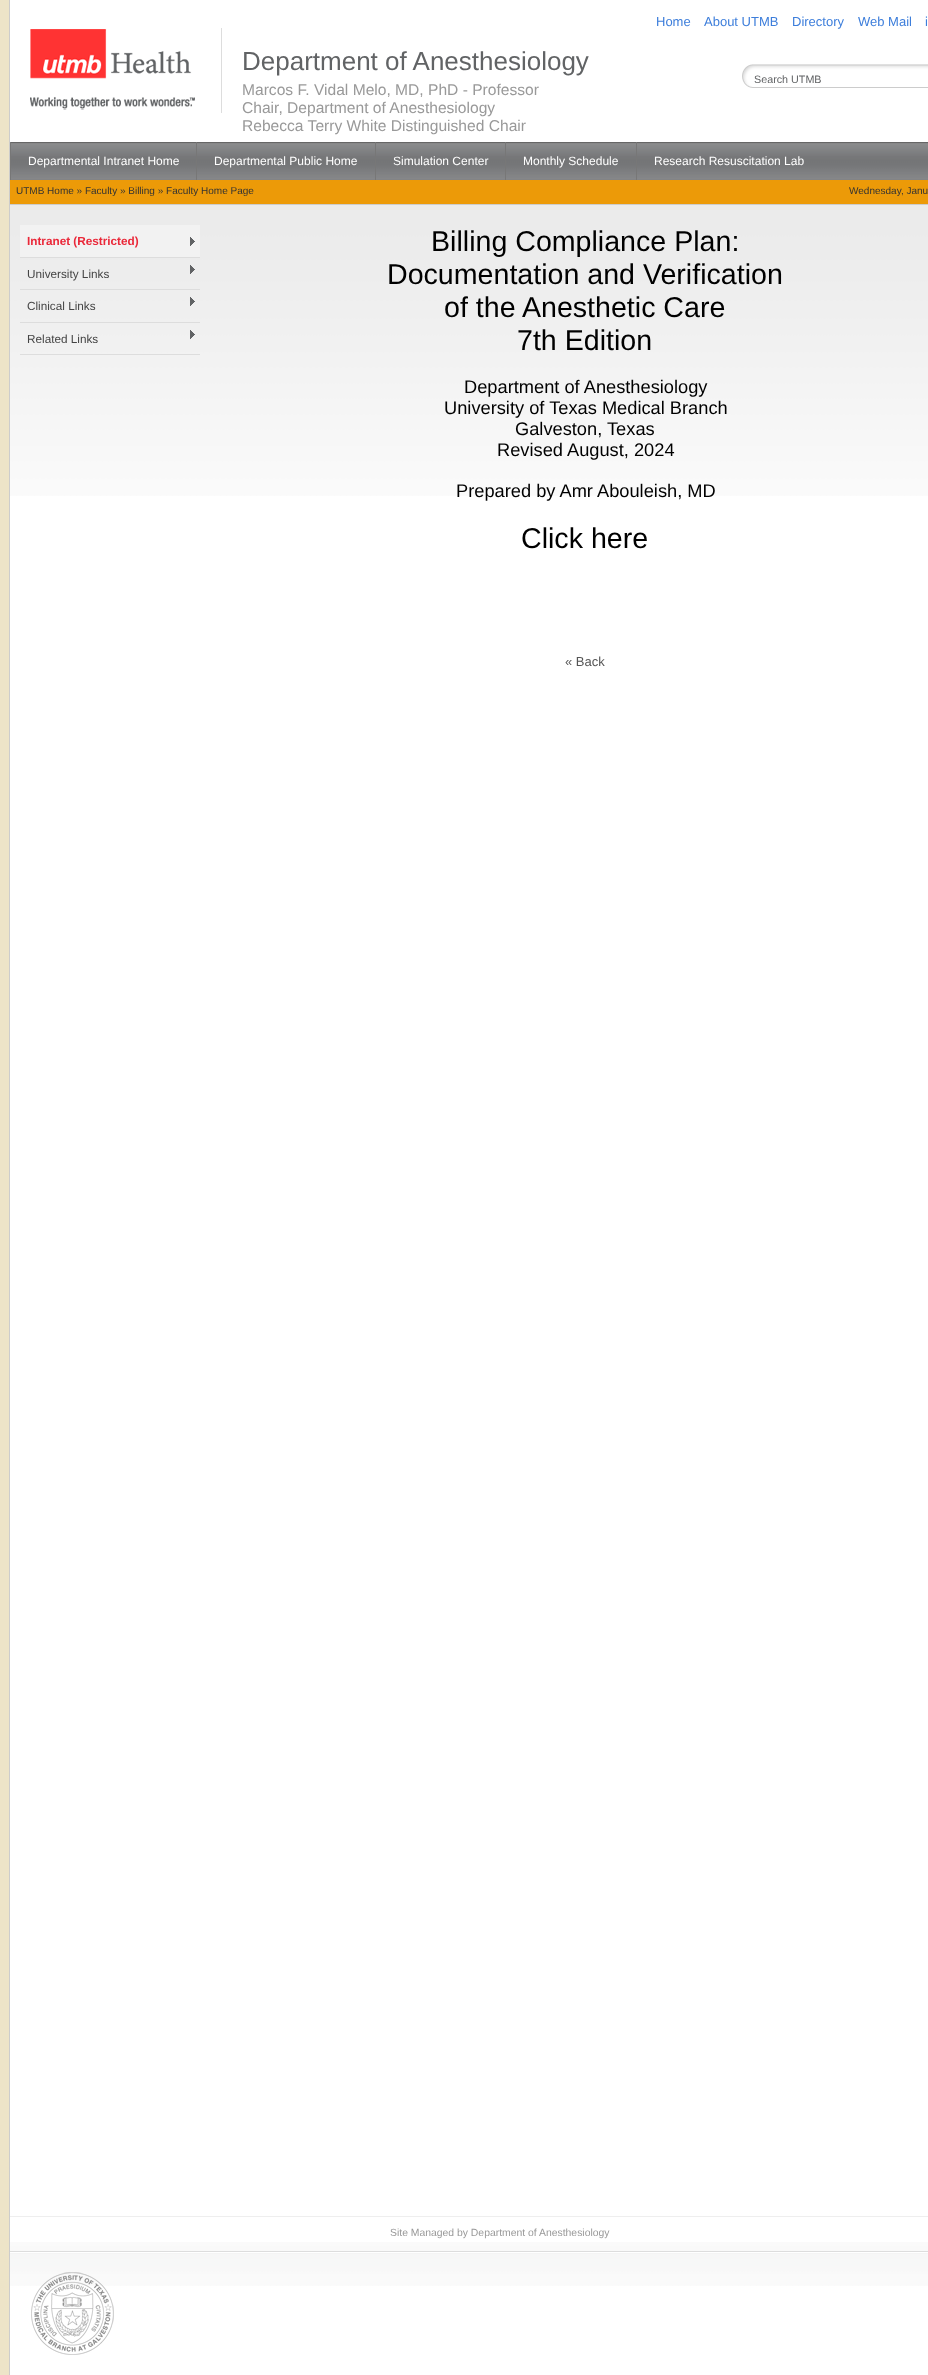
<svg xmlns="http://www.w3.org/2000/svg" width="928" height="2375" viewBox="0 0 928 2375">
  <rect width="100%" height="100%" fill="#ede4c8"/>
  <path d="M10 0h918v2375H10z" fill="#fff"/>
  <image x="10" y="205" width="918" height="291" href="img/1.png"/>
  <path d="M9 0h1v2375H9z" fill="#ccc"/>
  <image x="30" y="29" width="165" height="81" href="img/2.png"/>
  <path d="M221 28h1v85H221z" fill="#ddd"/>
  <image x="742" y="64" width="186" height="24" href="img/3.png"/>
  <path d="M11 142h917v1H11z" fill="#666"/>
  <image x="11" y="143" width="917" height="37" href="img/4.png"/>
  <path d="M10 142h1v38H10z" fill="#777"/>
  <path d="M196 142h1v38H196z" fill="#777"/>
  <path d="M375 142h1v38H375z" fill="#777"/>
  <path d="M505 142h1v38H505z" fill="#777"/>
  <path d="M636 142h1v38H636z" fill="#777"/>
  <path d="M10 180h918v24H10z" fill="#ec9a08"/>
  <path d="M10 204h918v1H10z" fill="#ccc"/>
  <path d="M20 257h180v1H20z" fill="#ddd"/>
  <path d="M20 225h180v32H20z" fill="#f2f2f2"/>
  <image x="190" y="237" width="5" height="9" href="img/5.png"/>
  <path d="M20 289h180v1H20z" fill="#ddd"/>
  <image x="190" y="265" width="5" height="9" href="img/6.png"/>
  <path d="M20 322h180v1H20z" fill="#ddd"/>
  <image x="190" y="297" width="5" height="9" href="img/7.png"/>
  <path d="M20 354h180v1H20z" fill="#ddd"/>
  <image x="190" y="330" width="5" height="9" href="img/8.png"/>
  <image x="10" y="2242" width="918" height="44" href="img/9.png"/>
  <path d="M10 2216h918v1H10z" fill="#eee"/>
  <image x="31" y="2272" width="83" height="83" href="img/10.png"/>
  <text x="242" y="70" font-family="Liberation Sans" font-size="26" fill="#616365">Department of Anesthesiology</text>
  <g font-family="Liberation Sans" font-size="15.6" fill="#999">
    <text x="242" y="95">Marcos F. Vidal Melo, MD, PhD - Professor</text>
    <text x="242" y="113">Chair, Department of Anesthesiology</text>
    <text x="242" y="131">Rebecca Terry White Distinguished Chair</text>
  </g>
  <g font-family="Liberation Sans" font-size="13" fill="#3d7edb">
    <text x="656" y="26">Home</text>
    <text x="704" y="26">About UTMB</text>
    <text x="792" y="26">Directory</text>
    <text x="858" y="26">Web Mail</text>
    <text x="925" y="26">i</text>
  </g>
  <text x="754" y="83" font-family="Liberation Sans" font-size="10.75" fill="#616365">Search UTMB</text>
  <g font-family="Liberation Sans" font-size="12" fill="#fff">
    <text x="28" y="165">Departmental Intranet Home</text>
    <text x="214" y="165">Departmental Public Home</text>
    <text x="393" y="165">Simulation Center</text>
    <text x="523" y="165">Monthly Schedule</text>
    <text x="654" y="165">Research Resuscitation Lab</text>
  </g>
  <g font-family="Liberation Sans" font-size="10" fill="#333">
    <text x="16" y="194">UTMB Home » Faculty » Billing » Faculty Home Page</text>
    <text x="849" y="194">Wednesday, Janu</text>
  </g>
  <text x="27" y="245" font-family="Liberation Sans" font-size="11.75" font-weight="bold" fill="#ea2839">Intranet (Restricted)</text>
  <g font-family="Liberation Sans" font-size="11.75" fill="#444">
    <text x="27" y="278">University Links</text>
    <text x="27" y="310">Clinical Links</text>
    <text x="27" y="343">Related Links</text>
  </g>
  <g font-family="Liberation Sans" font-size="28.6" fill="#000">
    <text x="431" y="251">Billing Compliance Plan:</text>
    <text x="387" y="284">Documentation and Verification</text>
    <text x="444" y="317">of the Anesthetic Care</text>
    <text x="517" y="350">7th Edition</text>
  </g>
  <g font-family="Liberation Sans" font-size="18.25" fill="#000">
    <text x="464" y="393">Department of Anesthesiology</text>
    <text x="444" y="414">University of Texas Medical Branch</text>
    <text x="515" y="435">Galveston, Texas</text>
    <text x="497" y="456">Revised August, 2024</text>
    <text x="456" y="497">Prepared by Amr Abouleish, MD</text>
  </g>
  <text x="521" y="548" font-family="Liberation Sans" font-size="28.6" fill="#000">Click here</text>
  <text x="565" y="666" font-family="Liberation Sans" font-size="13" fill="#555">« Back</text>
  <text x="390" y="2236" font-family="Liberation Sans" font-size="10.4" fill="#999">Site Managed by Department of Anesthesiology</text>
</svg>
